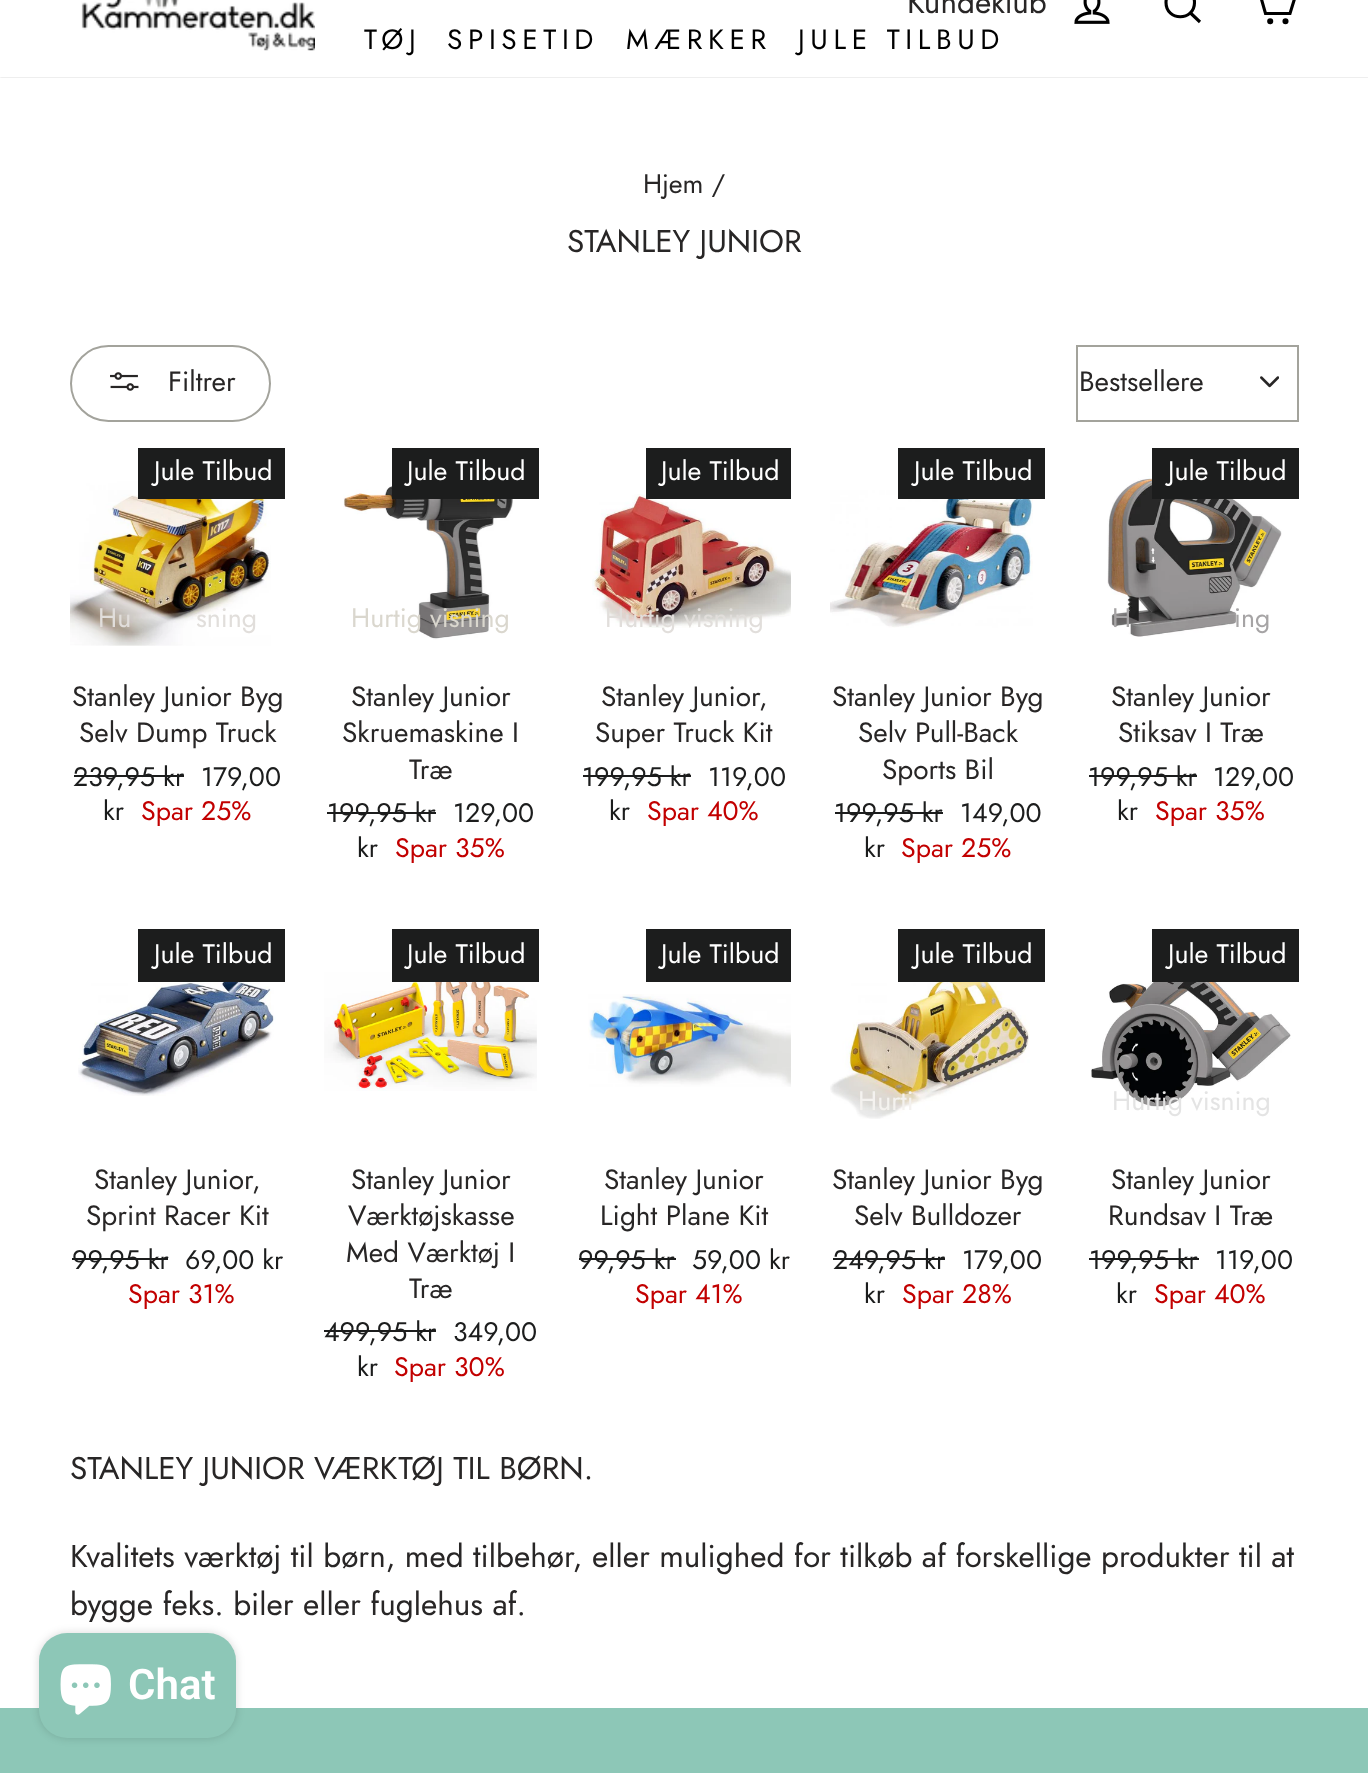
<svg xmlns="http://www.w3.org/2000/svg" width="1368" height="1773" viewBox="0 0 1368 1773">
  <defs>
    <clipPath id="clip1"><path d="M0 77h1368v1H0z"/></clipPath>
  </defs>
  <rect width="100%" height="100%" fill="#fff"/>
  <g clip-path="url(#clip1)">
    <path d="M0 -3h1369v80H0z" fill="#00000033" filter="blur(1px)"/>
  </g>
  <image x="81" y="0" width="234" height="51" href="img/1.png"/>
  <image x="1074" y="0" width="36" height="24" href="img/2.png"/>
  <path d="M1194.5 2.5C1194.5 21.5 1166 21.5 1166 2.5C1166-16 1194.5-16 1194.5 2.5ZM1200 22L1190.5 13" fill="none" stroke="#000" stroke-width="3.1"/>
  <path d="M1260-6H1296L1290 13.5H1265.5L1258-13H1252" fill="none" stroke="#000" stroke-width="3.1"/>
  <circle cx="1270.2" cy="21.3" r="1.5" fill="none" stroke="#000" stroke-width="3.1"/>
  <circle cx="1285.5" cy="21.3" r="1.5" fill="none" stroke="#000" stroke-width="3.1"/>
  <rect x="71" y="346" width="199" height="75" rx="37.5" fill="none" stroke="#a3a39c" stroke-width="2"/>
  <image x="110" y="372" width="29" height="19" href="img/3.png"/>
  <image x="1260" y="376" width="19" height="12" href="img/4.png"/>
  <path d="M1077 346h221v75H1077z" fill="none" stroke="#a3a39c" stroke-width="2"/>
  <image x="70" y="481" width="201" height="165" href="img/5.png"/>
  <path d="M138 448h147v51H138z" fill="#1c1d1d"/>
  <path d="M74 775h110v2H74z" fill="#1c1d1d"/>
  <image x="343" y="478" width="170" height="162" href="img/6.png"/>
  <path d="M392 448h147v51H392z" fill="#1c1d1d"/>
  <path d="M327 812h109v2H327z" fill="#1c1d1d"/>
  <image x="592" y="494" width="199" height="134" href="img/7.png"/>
  <path d="M646 448h145v51H646z" fill="#1c1d1d"/>
  <path d="M583 775h108v2H583z" fill="#1c1d1d"/>
  <image x="830" y="490" width="203" height="138" href="img/8.png"/>
  <path d="M898 448h147v51H898z" fill="#1c1d1d"/>
  <path d="M835 812h108v2H835z" fill="#1c1d1d"/>
  <image x="1107" y="476" width="175" height="161" href="img/9.png"/>
  <path d="M1152 448h147v51H1152z" fill="#1c1d1d"/>
  <path d="M1089 775h108v2H1089z" fill="#1c1d1d"/>
  <image x="78" y="975" width="198" height="121" href="img/10.png"/>
  <path d="M138 929h147v53H138z" fill="#1c1d1d"/>
  <path d="M72 1258h96v2H72z" fill="#1c1d1d"/>
  <image x="324" y="972" width="213" height="119" href="img/11.png"/>
  <path d="M392 929h147v53H392z" fill="#1c1d1d"/>
  <path d="M324 1330h112v2H324z" fill="#1c1d1d"/>
  <path d="M646 929h145v53H646z" fill="#1c1d1d"/>
  <image x="588" y="994" width="203" height="93" href="img/12.png"/>
  <path d="M579 1258h97v2H579z" fill="#1c1d1d"/>
  <image x="830" y="967" width="200" height="152" href="img/13.png"/>
  <path d="M898 929h147v53H898z" fill="#1c1d1d"/>
  <path d="M833 1258h112v2H833z" fill="#1c1d1d"/>
  <image x="1091" y="959" width="200" height="148" href="img/14.png"/>
  <path d="M1152 929h147v53H1152z" fill="#1c1d1d"/>
  <path d="M1089 1258h110v2H1089z" fill="#1c1d1d"/>
  <path d="M0 1708h1368v65H0z" fill="#8dc7b7"/>
  <rect x="39" y="1633" width="197" height="105" rx="28" fill="#00000026" filter="blur(4.5px)"/>
  <rect x="39" y="1633" width="197" height="105" rx="28" fill="#8dc7b7"/>
  <image x="60" y="1664" width="51" height="51" href="img/15.png"/>
  <text x="907" y="13" font-family="Jost" font-size="31.5" fill="#282626">Kundeklub</text>
  <g font-family="Jost" font-size="28" letter-spacing="5.6" fill="#000">
    <text x="364" y="49">TØJ</text>
    <text x="447" y="49">SPISETID</text>
    <text x="626" y="49">MÆRKER</text>
    <text x="798" y="49">JULE TILBUD</text>
  </g>
  <text x="643" y="193" font-family="Jost" font-size="26.75" fill="#282626">Hjem /</text>
  <text x="567" y="252" font-family="Jost" font-size="31.5" fill="#282626">STANLEY JUNIOR</text>
  <g font-family="Jost" font-size="28" fill="#282626">
    <text x="168" y="391">Filtrer</text>
    <text x="1079" y="391">Bestsellere</text>
  </g>
  <text x="154" y="480" font-family="Jost" font-size="26.75" fill="#fff">Jule Tilbud</text>
  <g font-family="Jost" font-size="26.75" fill="#e1dedb">
    <text x="98" y="627">Hu</text>
    <text x="196" y="627">sning</text>
  </g>
  <g font-family="Jost" font-size="28" fill="#282626">
    <text x="72" y="706">Stanley Junior Byg</text>
    <text x="79" y="742">Selv Dump Truck</text>
  </g>
  <g font-family="Jost" font-size="26.75" fill="#1c1d1d">
    <text x="73" y="786">239,95 kr</text>
    <text x="201" y="786">179,00</text>
    <text x="103" y="820">kr</text>
  </g>
  <text x="141" y="820" font-family="Jost" font-size="26.75" fill="#c20000">Spar 25%</text>
  <text x="407" y="480" font-family="Jost" font-size="26.75" fill="#fff">Jule Tilbud</text>
  <text x="351" y="627" font-family="Jost" font-size="26.75" fill="#dad7ce">Hurtig visning</text>
  <g font-family="Jost" font-size="28" fill="#282626">
    <text x="351" y="706">Stanley Junior</text>
    <text x="342" y="742">Skruemaskine I</text>
    <text x="409" y="779">Træ</text>
  </g>
  <g font-family="Jost" font-size="26.75" fill="#1c1d1d">
    <text x="327" y="822">199,95 kr</text>
    <text x="453" y="822">129,00</text>
    <text x="357" y="857">kr</text>
  </g>
  <text x="395" y="857" font-family="Jost" font-size="26.75" fill="#c20000">Spar 35%</text>
  <text x="661" y="480" font-family="Jost" font-size="26.75" fill="#fff">Jule Tilbud</text>
  <text x="605" y="627" font-family="Jost" font-size="26.75" fill="#e1dedb">Hurtig visning</text>
  <g font-family="Jost" font-size="28" fill="#282626">
    <text x="601" y="706">Stanley Junior,</text>
    <text x="595" y="742">Super Truck Kit</text>
  </g>
  <g font-family="Jost" font-size="26.75" fill="#1c1d1d">
    <text x="582" y="786">199,95 kr</text>
    <text x="708" y="786">119,00</text>
    <text x="609" y="820">kr</text>
  </g>
  <text x="647" y="820" font-family="Jost" font-size="26.75" fill="#c20000">Spar 40%</text>
  <text x="914" y="480" font-family="Jost" font-size="26.75" fill="#fff">Jule Tilbud</text>
  <g font-family="Jost" font-size="28" fill="#282626">
    <text x="832" y="706">Stanley Junior Byg</text>
    <text x="858" y="742">Selv Pull-Back</text>
    <text x="882" y="779">Sports Bil</text>
  </g>
  <g font-family="Jost" font-size="26.75" fill="#1c1d1d">
    <text x="834" y="822">199,95 kr</text>
    <text x="960" y="822">149,00</text>
    <text x="864" y="857">kr</text>
  </g>
  <text x="901" y="857" font-family="Jost" font-size="26.75" fill="#c20000">Spar 25%</text>
  <text x="1168" y="480" font-family="Jost" font-size="26.75" fill="#fff">Jule Tilbud</text>
  <g font-family="Jost" font-size="26.75" fill="#a6a4a5">
    <text x="1112" y="627">H</text>
    <text x="1234" y="627">ing</text>
  </g>
  <g font-family="Jost" font-size="28" fill="#282626">
    <text x="1111" y="706">Stanley Junior</text>
    <text x="1118" y="742">Stiksav I Træ</text>
  </g>
  <g font-family="Jost" font-size="26.75" fill="#1c1d1d">
    <text x="1088" y="786">199,95 kr</text>
    <text x="1213" y="786">129,00</text>
    <text x="1117" y="820">kr</text>
  </g>
  <text x="1155" y="820" font-family="Jost" font-size="26.75" fill="#c20000">Spar 35%</text>
  <text x="154" y="963" font-family="Jost" font-size="26.75" fill="#fff">Jule Tilbud</text>
  <g font-family="Jost" font-size="28" fill="#282626">
    <text x="94" y="1189">Stanley Junior,</text>
    <text x="86" y="1225">Sprint Racer Kit</text>
  </g>
  <g font-family="Jost" font-size="26.75" fill="#1c1d1d">
    <text x="72" y="1269">99,95 kr</text>
    <text x="185" y="1269">69,00 kr</text>
  </g>
  <text x="128" y="1303" font-family="Jost" font-size="26.75" fill="#c20000">Spar 31%</text>
  <text x="407" y="963" font-family="Jost" font-size="26.75" fill="#fff">Jule Tilbud</text>
  <g font-family="Jost" font-size="28" fill="#282626">
    <text x="351" y="1189">Stanley Junior</text>
    <text x="348" y="1225">Værktøjskasse</text>
    <text x="346" y="1262">Med Værktøj I</text>
    <text x="409" y="1298">Træ</text>
  </g>
  <g font-family="Jost" font-size="26.75" fill="#1c1d1d">
    <text x="324" y="1341">499,95 kr</text>
    <text x="453" y="1341">349,00</text>
    <text x="357" y="1376">kr</text>
  </g>
  <text x="394" y="1376" font-family="Jost" font-size="26.75" fill="#c20000">Spar 30%</text>
  <text x="661" y="963" font-family="Jost" font-size="26.75" fill="#fff">Jule Tilbud</text>
  <g font-family="Jost" font-size="28" fill="#282626">
    <text x="604" y="1189">Stanley Junior</text>
    <text x="600" y="1225">Light Plane Kit</text>
  </g>
  <g font-family="Jost" font-size="26.75" fill="#1c1d1d">
    <text x="578" y="1269">99,95 kr</text>
    <text x="692" y="1269">59,00 kr</text>
  </g>
  <text x="635" y="1303" font-family="Jost" font-size="26.75" fill="#c20000">Spar 41%</text>
  <text x="914" y="963" font-family="Jost" font-size="26.75" fill="#fff">Jule Tilbud</text>
  <text x="858" y="1110" font-family="Jost" font-size="26.75" fill="#f4f2ef">Hurti</text>
  <g font-family="Jost" font-size="28" fill="#282626">
    <text x="832" y="1189">Stanley Junior Byg</text>
    <text x="854" y="1225">Selv Bulldozer</text>
  </g>
  <g font-family="Jost" font-size="26.75" fill="#1c1d1d">
    <text x="833" y="1269">249,95 kr</text>
    <text x="962" y="1269">179,00</text>
    <text x="864" y="1303">kr</text>
  </g>
  <text x="902" y="1303" font-family="Jost" font-size="26.75" fill="#c20000">Spar 28%</text>
  <text x="1168" y="963" font-family="Jost" font-size="26.75" fill="#fff">Jule Tilbud</text>
  <text x="1112" y="1110" font-family="Jost" font-size="26.75" fill="#e4e4e4">Hurtig visning</text>
  <g font-family="Jost" font-size="28" fill="#282626">
    <text x="1111" y="1189">Stanley Junior</text>
    <text x="1108" y="1225">Rundsav I Træ</text>
  </g>
  <g font-family="Jost" font-size="26.75" fill="#1c1d1d">
    <text x="1089" y="1269">199,95 kr</text>
    <text x="1215" y="1269">119,00</text>
    <text x="1116" y="1303">kr</text>
  </g>
  <text x="1154" y="1303" font-family="Jost" font-size="26.75" fill="#c20000">Spar 40%</text>
  <g font-family="Jost" font-size="31.5" fill="#282626">
    <text x="70" y="1479">STANLEY JUNIOR VÆRKTØJ TIL BØRN.</text>
    <text x="70" y="1567">Kvalitets værktøj til børn, med tilbehør, eller mulighed for tilkøb af forskellige produkter til at</text>
    <text x="70" y="1615">bygge feks. biler eller fuglehus af.</text>
  </g>
  <text x="128" y="1699" font-family="Roboto" font-size="42" font-weight="600" fill="#fff">Chat</text>
</svg>
